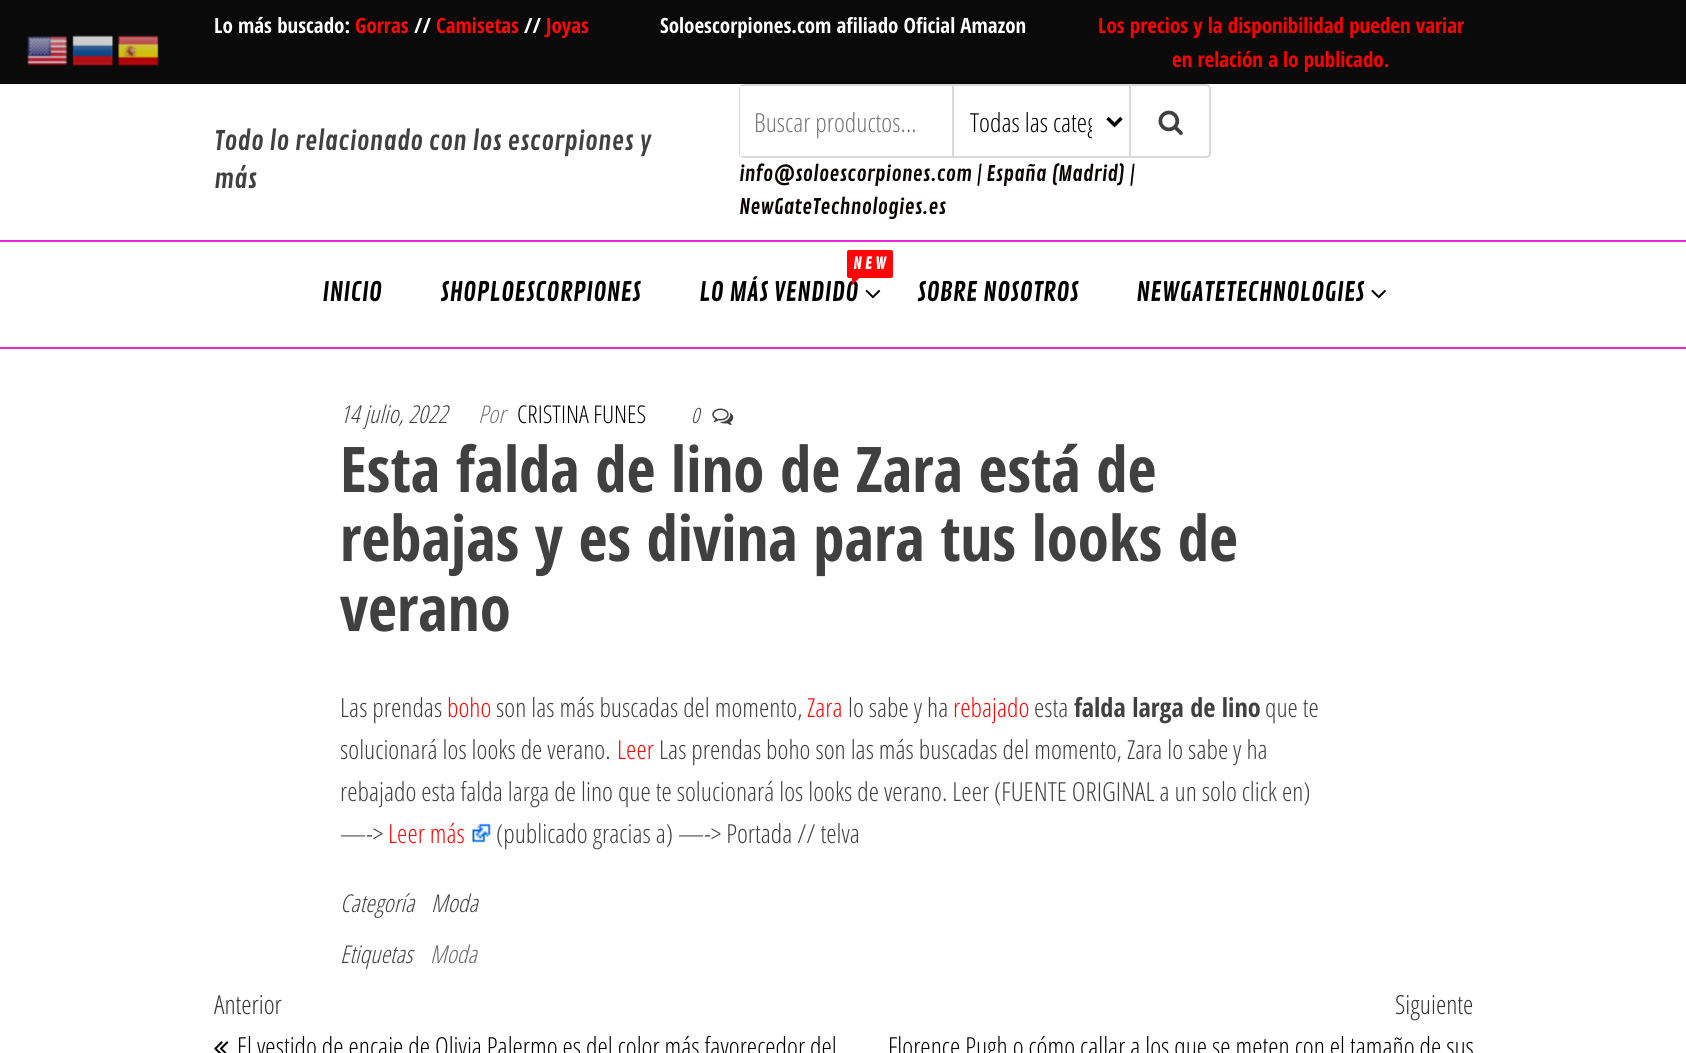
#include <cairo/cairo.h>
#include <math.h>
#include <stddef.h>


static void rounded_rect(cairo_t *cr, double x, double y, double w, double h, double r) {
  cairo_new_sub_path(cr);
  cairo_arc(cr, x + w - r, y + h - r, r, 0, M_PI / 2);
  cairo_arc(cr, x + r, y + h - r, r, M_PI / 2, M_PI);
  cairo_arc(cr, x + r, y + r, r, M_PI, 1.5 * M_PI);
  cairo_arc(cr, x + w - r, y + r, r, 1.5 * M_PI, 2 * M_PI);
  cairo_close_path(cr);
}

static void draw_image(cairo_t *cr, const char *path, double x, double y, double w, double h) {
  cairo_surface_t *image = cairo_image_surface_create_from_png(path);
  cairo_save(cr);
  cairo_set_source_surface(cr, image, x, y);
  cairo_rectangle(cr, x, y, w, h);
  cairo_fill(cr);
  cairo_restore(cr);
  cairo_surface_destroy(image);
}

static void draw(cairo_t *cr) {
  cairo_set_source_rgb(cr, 1, 1, 1);
  cairo_paint(cr);
  cairo_set_source_rgb(cr, 10 / 255.0, 10 / 255.0, 10 / 255.0);
  cairo_rectangle(cr, 0, 0, 1686, 84);
  cairo_fill(cr);
  draw_image(cr, "images/1.png", 27, 35, 41, 31);
  draw_image(cr, "images/2.png", 72, 35, 42, 31);
  draw_image(cr, "images/3.png", 118, 35, 41, 31);
  rounded_rect(cr, 740, 85, 470, 72, 4);
  cairo_set_source_rgb(cr, 217 / 255.0, 217 / 255.0, 217 / 255.0);
  cairo_stroke(cr);
  cairo_set_source_rgb(cr, 1, 1, 1);
  cairo_rectangle(cr, 740, 86, 4, 70);
  cairo_fill(cr);
  cairo_set_source_rgb(cr, 217 / 255.0, 217 / 255.0, 217 / 255.0);
  cairo_rectangle(cr, 952, 86, 2, 70);
  cairo_fill(cr);
  cairo_new_path(cr);
  cairo_move_to(cr, 1107.5, 118);
  cairo_line_to(cr, 1114.5, 125);
  cairo_line_to(cr, 1121.5, 118);
  cairo_set_source_rgb(cr, 0, 0, 0);
  cairo_set_line_width(cr, 3.5);
  cairo_stroke(cr);
  cairo_set_source_rgb(cr, 217 / 255.0, 217 / 255.0, 217 / 255.0);
  cairo_rectangle(cr, 1129, 86, 2, 70);
  cairo_fill(cr);
  draw_image(cr, "images/4.png", 1158, 110, 25, 25);
  cairo_set_source_rgb(cr, 235 / 255.0, 40 / 255.0, 209 / 255.0);
  cairo_rectangle(cr, 0, 240, 1686, 2);
  cairo_fill(cr);
  cairo_rectangle(cr, 0, 347, 1686, 2);
  cairo_fill(cr);
  draw_image(cr, "images/5.png", 865, 289, 16, 10);
  draw_image(cr, "images/6.png", 1371, 289, 15, 10);
  draw_image(cr, "images/7.png", 712, 408, 22, 17);
  draw_image(cr, "images/8.png", 472, 823, 19, 20);
  draw_image(cr, "images/9.png", 214, 1041, 15, 12);
  cairo_select_font_face(cr, "Open Sans Condensed", CAIRO_FONT_SLANT_NORMAL, CAIRO_FONT_WEIGHT_BOLD);
  cairo_set_font_size(cr, 21);
  cairo_set_source_rgb(cr, 1, 1, 1);
  cairo_move_to(cr, 214, 33);
  cairo_show_text(cr, "Lo más buscado:");
  cairo_set_source_rgb(cr, 1, 7 / 255.0, 7 / 255.0);
  cairo_move_to(cr, 355, 33);
  cairo_show_text(cr, "Gorras");
  cairo_set_source_rgb(cr, 1, 1, 1);
  cairo_move_to(cr, 414, 33);
  cairo_show_text(cr, "//");
  cairo_set_source_rgb(cr, 1, 7 / 255.0, 7 / 255.0);
  cairo_move_to(cr, 436, 33);
  cairo_show_text(cr, "Camisetas");
  cairo_set_source_rgb(cr, 1, 1, 1);
  cairo_move_to(cr, 524, 33);
  cairo_show_text(cr, "//");
  cairo_set_source_rgb(cr, 1, 7 / 255.0, 7 / 255.0);
  cairo_move_to(cr, 546, 33);
  cairo_show_text(cr, "Joyas");
  cairo_set_source_rgb(cr, 1, 1, 1);
  cairo_move_to(cr, 660, 33);
  cairo_show_text(cr, "Soloescorpiones.com afiliado Oficial Amazon");
  cairo_set_source_rgb(cr, 1, 0, 0);
  cairo_move_to(cr, 1098, 33);
  cairo_show_text(cr, "Los precios y la disponibilidad pueden variar");
  cairo_move_to(cr, 1172, 67);
  cairo_show_text(cr, "en relación a lo publicado.");
  cairo_select_font_face(cr, "Contrail One", CAIRO_FONT_SLANT_NORMAL, CAIRO_FONT_WEIGHT_NORMAL);
  cairo_set_font_size(cr, 26.25);
  cairo_set_source_rgb(cr, 64 / 255.0, 64 / 255.0, 64 / 255.0);
  cairo_move_to(cr, 214, 150);
  cairo_show_text(cr, "Todo lo relacionado con los escorpiones y");
  cairo_move_to(cr, 214, 188);
  cairo_show_text(cr, "más");
  cairo_select_font_face(cr, "Open Sans Condensed Light", CAIRO_FONT_SLANT_NORMAL, CAIRO_FONT_WEIGHT_NORMAL);
  cairo_set_source_rgb(cr, 117 / 255.0, 117 / 255.0, 117 / 255.0);
  cairo_move_to(cr, 754, 132);
  cairo_show_text(cr, "Buscar productos...");
  cairo_save(cr);
  cairo_rectangle(cr, 970, 102, 122, 38);
  cairo_clip(cr);
  cairo_set_source_rgb(cr, 0, 0, 0);
  cairo_move_to(cr, 970, 132);
  cairo_show_text(cr, "Todas las categ");
  cairo_restore(cr);
  cairo_select_font_face(cr, "Contrail One", CAIRO_FONT_SLANT_NORMAL, CAIRO_FONT_WEIGHT_NORMAL);
  cairo_set_font_size(cr, 21);
  cairo_set_source_rgb(cr, 10 / 255.0, 2 / 255.0, 2 / 255.0);
  cairo_move_to(cr, 739, 181);
  cairo_show_text(cr, "info@soloescorpiones.com | España (Madrid) |");
  cairo_move_to(cr, 739, 214);
  cairo_show_text(cr, "NewGateTechnologies.es");
  cairo_set_font_size(cr, 26.25);
  cairo_set_source_rgb(cr, 0, 0, 0);
  cairo_move_to(cr, 322, 301);
  cairo_show_text(cr, "INICIO");
  cairo_move_to(cr, 440, 301);
  cairo_show_text(cr, "SHOPLOESCORPIONES");
  cairo_move_to(cr, 699, 301);
  cairo_show_text(cr, "LO MÁS VENDIDO");
  cairo_set_source_rgb(cr, 1, 7 / 255.0, 7 / 255.0);
  rounded_rect(cr, 847, 250, 46, 28, 2);
  cairo_fill(cr);
  cairo_new_path(cr);
  cairo_move_to(cr, 852, 276.5);
  cairo_line_to(cr, 861, 276.5);
  cairo_line_to(cr, 852, 285);
  cairo_close_path(cr);
  cairo_fill(cr);
  cairo_select_font_face(cr, "Contrail One", CAIRO_FONT_SLANT_NORMAL, CAIRO_FONT_WEIGHT_BOLD);
  cairo_set_font_size(cr, 16);
  cairo_set_source_rgb(cr, 1, 1, 1);
  cairo_move_to(cr, 853, 269);
  cairo_show_text(cr, "N E W");
  cairo_select_font_face(cr, "Contrail One", CAIRO_FONT_SLANT_NORMAL, CAIRO_FONT_WEIGHT_NORMAL);
  cairo_set_font_size(cr, 26.25);
  cairo_set_source_rgb(cr, 0, 0, 0);
  cairo_move_to(cr, 917, 301);
  cairo_show_text(cr, "SOBRE NOSOTROS");
  cairo_move_to(cr, 1136, 301);
  cairo_show_text(cr, "NEWGATETECHNOLOGIES");
  cairo_select_font_face(cr, "Open Sans Condensed Light", CAIRO_FONT_SLANT_ITALIC, CAIRO_FONT_WEIGHT_NORMAL);
  cairo_set_font_size(cr, 24.5);
  cairo_set_source_rgb(cr, 64 / 255.0, 64 / 255.0, 64 / 255.0);
  cairo_move_to(cr, 340, 423);
  cairo_show_text(cr, "14 julio, 2022");
  cairo_set_source_rgb(cr, 117 / 255.0, 117 / 255.0, 117 / 255.0);
  cairo_move_to(cr, 478, 423);
  cairo_show_text(cr, "Por");
  cairo_select_font_face(cr, "Open Sans Condensed Light", CAIRO_FONT_SLANT_NORMAL, CAIRO_FONT_WEIGHT_NORMAL);
  cairo_set_source_rgb(cr, 0, 0, 0);
  cairo_move_to(cr, 517, 423);
  cairo_show_text(cr, "CRISTINA FUNES");
  cairo_select_font_face(cr, "Open Sans Condensed Light", CAIRO_FONT_SLANT_ITALIC, CAIRO_FONT_WEIGHT_NORMAL);
  cairo_set_font_size(cr, 21);
  cairo_set_source_rgb(cr, 64 / 255.0, 64 / 255.0, 64 / 255.0);
  cairo_move_to(cr, 691, 423);
  cairo_show_text(cr, "0");
  cairo_select_font_face(cr, "Open Sans Condensed", CAIRO_FONT_SLANT_NORMAL, CAIRO_FONT_WEIGHT_BOLD);
  cairo_set_font_size(cr, 63);
  cairo_move_to(cr, 340, 492);
  cairo_show_text(cr, "Esta falda de lino de Zara está de");
  cairo_move_to(cr, 340, 561);
  cairo_show_text(cr, "rebajas y es divina para tus looks de");
  cairo_move_to(cr, 340, 631);
  cairo_show_text(cr, "verano");
  cairo_select_font_face(cr, "Open Sans Condensed Light", CAIRO_FONT_SLANT_NORMAL, CAIRO_FONT_WEIGHT_NORMAL);
  cairo_set_font_size(cr, 26.25);
  cairo_move_to(cr, 340, 717);
  cairo_show_text(cr, "Las prendas");
  cairo_set_source_rgb(cr, 1, 7 / 255.0, 7 / 255.0);
  cairo_move_to(cr, 447, 717);
  cairo_show_text(cr, "boho");
  cairo_set_source_rgb(cr, 64 / 255.0, 64 / 255.0, 64 / 255.0);
  cairo_move_to(cr, 496, 717);
  cairo_show_text(cr, "son las más buscadas del momento,");
  cairo_set_source_rgb(cr, 1, 7 / 255.0, 7 / 255.0);
  cairo_move_to(cr, 807, 717);
  cairo_show_text(cr, "Zara");
  cairo_set_source_rgb(cr, 64 / 255.0, 64 / 255.0, 64 / 255.0);
  cairo_move_to(cr, 848, 717);
  cairo_show_text(cr, "lo sabe y ha");
  cairo_set_source_rgb(cr, 1, 7 / 255.0, 7 / 255.0);
  cairo_move_to(cr, 953, 717);
  cairo_show_text(cr, "rebajado");
  cairo_set_source_rgb(cr, 64 / 255.0, 64 / 255.0, 64 / 255.0);
  cairo_move_to(cr, 1034, 717);
  cairo_show_text(cr, "esta");
  cairo_select_font_face(cr, "Open Sans Condensed", CAIRO_FONT_SLANT_NORMAL, CAIRO_FONT_WEIGHT_BOLD);
  cairo_move_to(cr, 1074, 717);
  cairo_show_text(cr, "falda larga de lino");
  cairo_select_font_face(cr, "Open Sans Condensed Light", CAIRO_FONT_SLANT_NORMAL, CAIRO_FONT_WEIGHT_NORMAL);
  cairo_move_to(cr, 1265, 717);
  cairo_show_text(cr, "que te");
  cairo_move_to(cr, 340, 759);
  cairo_show_text(cr, "solucionará los looks de verano.");
  cairo_set_source_rgb(cr, 1, 7 / 255.0, 7 / 255.0);
  cairo_move_to(cr, 617, 759);
  cairo_show_text(cr, "Leer");
  cairo_set_source_rgb(cr, 64 / 255.0, 64 / 255.0, 64 / 255.0);
  cairo_move_to(cr, 659, 759);
  cairo_show_text(cr, "Las prendas boho son las más buscadas del momento, Zara lo sabe y ha");
  cairo_move_to(cr, 340, 801);
  cairo_show_text(cr, "rebajado esta falda larga de lino que te solucionará los looks de verano. Leer (FUENTE ORIGINAL a un solo click en)");
  cairo_move_to(cr, 340, 843);
  cairo_show_text(cr, "—->");
  cairo_set_source_rgb(cr, 1, 7 / 255.0, 7 / 255.0);
  cairo_move_to(cr, 388, 843);
  cairo_show_text(cr, "Leer más");
  cairo_set_source_rgb(cr, 64 / 255.0, 64 / 255.0, 64 / 255.0);
  cairo_move_to(cr, 496, 843);
  cairo_show_text(cr, "(publicado gracias a) —-> Portada // telva");
  cairo_select_font_face(cr, "Open Sans Condensed Light", CAIRO_FONT_SLANT_ITALIC, CAIRO_FONT_WEIGHT_NORMAL);
  cairo_set_font_size(cr, 24.5);
  cairo_move_to(cr, 340, 912);
  cairo_show_text(cr, "Categoría");
  cairo_move_to(cr, 431, 912);
  cairo_show_text(cr, "Moda");
  cairo_move_to(cr, 340, 963);
  cairo_show_text(cr, "Etiquetas");
  cairo_set_source_rgb(cr, 102 / 255.0, 102 / 255.0, 102 / 255.0);
  cairo_move_to(cr, 430, 963);
  cairo_show_text(cr, "Moda");
  cairo_select_font_face(cr, "Open Sans Condensed Light", CAIRO_FONT_SLANT_NORMAL, CAIRO_FONT_WEIGHT_NORMAL);
  cairo_set_font_size(cr, 26.25);
  cairo_set_source_rgb(cr, 51 / 255.0, 51 / 255.0, 51 / 255.0);
  cairo_move_to(cr, 214, 1014);
  cairo_show_text(cr, "Anterior");
  cairo_set_source_rgb(cr, 0, 0, 0);
  cairo_move_to(cr, 237, 1056);
  cairo_show_text(cr, "El vestido de encaje de Olivia Palermo es del color más favorecedor del");
  cairo_set_source_rgb(cr, 51 / 255.0, 51 / 255.0, 51 / 255.0);
  cairo_move_to(cr, 1395, 1014);
  cairo_show_text(cr, "Siguiente");
  cairo_set_source_rgb(cr, 0, 0, 0);
  cairo_move_to(cr, 888, 1056);
  cairo_show_text(cr, "Florence Pugh o cómo callar a los que se meten con el tamaño de sus");
}

int main(void) {
  cairo_surface_t *surface = cairo_image_surface_create(CAIRO_FORMAT_RGB24, 1686, 1053);
  cairo_t *cr = cairo_create(surface);
  cairo_font_options_t *options = cairo_font_options_create();
  cairo_font_options_set_hint_metrics(options, CAIRO_HINT_METRICS_OFF);
  cairo_font_options_set_hint_style(options, CAIRO_HINT_STYLE_NONE);
  cairo_set_font_options(cr, options);
  cairo_set_miter_limit(cr, 4);
  draw(cr);
  cairo_surface_write_to_png(surface, "out.png");
  cairo_font_options_destroy(options);
  cairo_destroy(cr);
  cairo_surface_destroy(surface);
  return 0;
}
